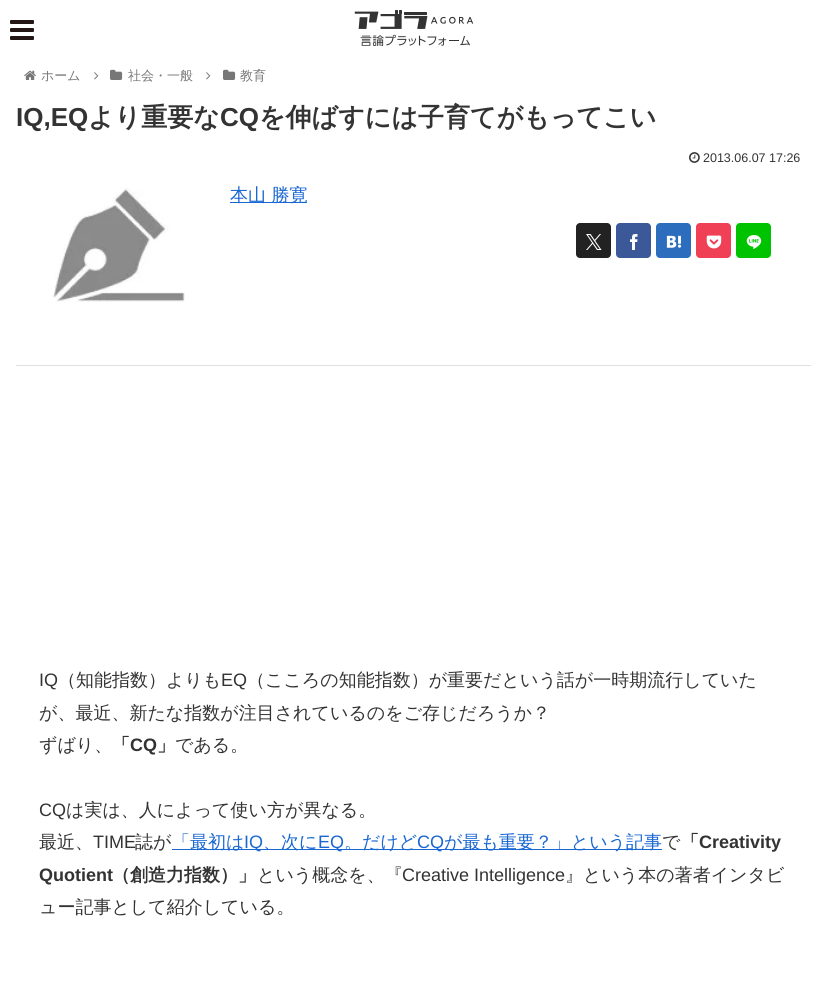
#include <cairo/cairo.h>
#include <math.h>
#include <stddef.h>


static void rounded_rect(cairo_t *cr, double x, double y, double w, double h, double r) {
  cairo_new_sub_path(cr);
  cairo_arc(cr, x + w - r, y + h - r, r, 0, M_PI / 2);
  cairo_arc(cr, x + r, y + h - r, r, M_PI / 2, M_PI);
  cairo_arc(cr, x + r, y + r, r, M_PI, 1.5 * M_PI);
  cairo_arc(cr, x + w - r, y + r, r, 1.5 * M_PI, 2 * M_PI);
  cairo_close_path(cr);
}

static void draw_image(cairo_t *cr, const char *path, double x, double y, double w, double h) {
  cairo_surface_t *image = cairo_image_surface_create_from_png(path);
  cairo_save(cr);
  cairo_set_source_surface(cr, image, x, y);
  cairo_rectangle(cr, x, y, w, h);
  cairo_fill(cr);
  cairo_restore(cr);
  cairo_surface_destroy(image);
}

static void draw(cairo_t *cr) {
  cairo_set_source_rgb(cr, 1, 1, 1);
  cairo_paint(cr);
  draw_image(cr, "images/1.png", 10, 20, 24, 20);
  draw_image(cr, "images/2.png", 354, 10, 120, 36);
  draw_image(cr, "images/3.png", 24, 70, 12, 10);
  draw_image(cr, "images/4.png", 94, 72, 5, 8);
  draw_image(cr, "images/5.png", 110, 69, 13, 11);
  draw_image(cr, "images/4.png", 206, 72, 5, 8);
  draw_image(cr, "images/5.png", 223, 69, 13, 11);
  cairo_set_source_rgb(cr, 224 / 255.0, 224 / 255.0, 224 / 255.0);
  cairo_rectangle(cr, 16, 365, 795, 1);
  cairo_fill(cr);
  draw_image(cr, "images/6.png", 689, 152, 11, 11);
  cairo_set_source_rgb(cr, 25 / 255.0, 103 / 255.0, 210 / 255.0);
  cairo_rectangle(cr, 230, 202, 77, 1);
  cairo_fill(cr);
  cairo_set_source_rgb(cr, 34 / 255.0, 34 / 255.0, 34 / 255.0);
  rounded_rect(cr, 576, 223, 35, 35, 4);
  cairo_fill(cr);
  draw_image(cr, "images/7.png", 586, 234, 16, 16);
  cairo_set_source_rgb(cr, 59 / 255.0, 89 / 255.0, 152 / 255.0);
  rounded_rect(cr, 616, 223, 35, 35, 4);
  cairo_fill(cr);
  draw_image(cr, "images/8.png", 630, 234, 8, 16);
  cairo_set_source_rgb(cr, 44 / 255.0, 110 / 255.0, 189 / 255.0);
  rounded_rect(cr, 656, 223, 35, 35, 4);
  cairo_fill(cr);
  draw_image(cr, "images/9.png", 666, 235, 16, 13);
  cairo_set_source_rgb(cr, 239 / 255.0, 64 / 255.0, 86 / 255.0);
  rounded_rect(cr, 696, 223, 35, 35, 4);
  cairo_fill(cr);
  draw_image(cr, "images/10.png", 706, 235, 16, 14);
  cairo_set_source_rgb(cr, 0, 195 / 255.0, 0);
  rounded_rect(cr, 736, 223, 35, 35, 4);
  cairo_fill(cr);
  draw_image(cr, "images/11.png", 746, 235, 16, 14);
  draw_image(cr, "images/12.png", 52, 187, 133, 115);
  cairo_set_source_rgb(cr, 25 / 255.0, 103 / 255.0, 210 / 255.0);
  cairo_rectangle(cr, 172, 849, 490, 1);
  cairo_fill(cr);
  cairo_select_font_face(cr, "WenQuanYi Zen Hei Medium", CAIRO_FONT_SLANT_NORMAL, CAIRO_FONT_WEIGHT_NORMAL);
  cairo_set_font_size(cr, 13);
  cairo_set_source_rgb(cr, 119 / 255.0, 119 / 255.0, 119 / 255.0);
  cairo_move_to(cr, 41, 80);
  cairo_show_text(cr, "ホーム");
  cairo_move_to(cr, 128, 80);
  cairo_show_text(cr, "社会・一般");
  cairo_move_to(cr, 240, 80);
  cairo_show_text(cr, "教育");
  cairo_select_font_face(cr, "Liberation Sans", CAIRO_FONT_SLANT_NORMAL, CAIRO_FONT_WEIGHT_BOLD);
  cairo_set_font_size(cr, 26);
  cairo_set_source_rgb(cr, 51 / 255.0, 51 / 255.0, 51 / 255.0);
  cairo_move_to(cr, 16, 126);
  cairo_show_text(cr, "IQ,EQ");
  cairo_select_font_face(cr, "WenQuanYi Zen Hei", CAIRO_FONT_SLANT_NORMAL, CAIRO_FONT_WEIGHT_BOLD);
  cairo_move_to(cr, 88, 126);
  cairo_show_text(cr, "より重要な");
  cairo_select_font_face(cr, "Liberation Sans", CAIRO_FONT_SLANT_NORMAL, CAIRO_FONT_WEIGHT_BOLD);
  cairo_move_to(cr, 220, 126);
  cairo_show_text(cr, "CQ");
  cairo_select_font_face(cr, "WenQuanYi Zen Hei", CAIRO_FONT_SLANT_NORMAL, CAIRO_FONT_WEIGHT_BOLD);
  cairo_move_to(cr, 259, 126);
  cairo_show_text(cr, "を伸ばすには子育てがもってこい");
  cairo_select_font_face(cr, "Liberation Sans", CAIRO_FONT_SLANT_NORMAL, CAIRO_FONT_WEIGHT_NORMAL);
  cairo_set_font_size(cr, 12.5);
  cairo_move_to(cr, 703, 162);
  cairo_show_text(cr, "2013.06.07 17:26");
  cairo_select_font_face(cr, "WenQuanYi Zen Hei Medium", CAIRO_FONT_SLANT_NORMAL, CAIRO_FONT_WEIGHT_NORMAL);
  cairo_set_font_size(cr, 18);
  cairo_set_source_rgb(cr, 25 / 255.0, 103 / 255.0, 210 / 255.0);
  cairo_move_to(cr, 230, 201);
  cairo_show_text(cr, "本山 勝寛");
  cairo_select_font_face(cr, "Liberation Sans", CAIRO_FONT_SLANT_NORMAL, CAIRO_FONT_WEIGHT_NORMAL);
  cairo_set_source_rgb(cr, 51 / 255.0, 51 / 255.0, 51 / 255.0);
  cairo_move_to(cr, 39, 686);
  cairo_show_text(cr, "IQ");
  cairo_select_font_face(cr, "WenQuanYi Zen Hei Medium", CAIRO_FONT_SLANT_NORMAL, CAIRO_FONT_WEIGHT_NORMAL);
  cairo_move_to(cr, 58, 686);
  cairo_show_text(cr, "（知能指数）よりも");
  cairo_select_font_face(cr, "Liberation Sans", CAIRO_FONT_SLANT_NORMAL, CAIRO_FONT_WEIGHT_NORMAL);
  cairo_move_to(cr, 221, 686);
  cairo_show_text(cr, "EQ");
  cairo_select_font_face(cr, "WenQuanYi Zen Hei Medium", CAIRO_FONT_SLANT_NORMAL, CAIRO_FONT_WEIGHT_NORMAL);
  cairo_move_to(cr, 247, 686);
  cairo_show_text(cr, "（こころの知能指数）が重要だという話が一時期流行していた");
  cairo_move_to(cr, 39, 719);
  cairo_show_text(cr, "が、最近、新たな指数が注目されているのをご存じだろうか？");
  cairo_move_to(cr, 39, 751);
  cairo_show_text(cr, "ずばり、");
  cairo_select_font_face(cr, "WenQuanYi Zen Hei", CAIRO_FONT_SLANT_NORMAL, CAIRO_FONT_WEIGHT_BOLD);
  cairo_move_to(cr, 112, 751);
  cairo_show_text(cr, "「");
  cairo_select_font_face(cr, "Liberation Sans", CAIRO_FONT_SLANT_NORMAL, CAIRO_FONT_WEIGHT_BOLD);
  cairo_move_to(cr, 130, 751);
  cairo_show_text(cr, "CQ");
  cairo_select_font_face(cr, "WenQuanYi Zen Hei", CAIRO_FONT_SLANT_NORMAL, CAIRO_FONT_WEIGHT_BOLD);
  cairo_move_to(cr, 157, 751);
  cairo_show_text(cr, "」");
  cairo_select_font_face(cr, "WenQuanYi Zen Hei Medium", CAIRO_FONT_SLANT_NORMAL, CAIRO_FONT_WEIGHT_NORMAL);
  cairo_move_to(cr, 175, 751);
  cairo_show_text(cr, "である。");
  cairo_select_font_face(cr, "Liberation Sans", CAIRO_FONT_SLANT_NORMAL, CAIRO_FONT_WEIGHT_NORMAL);
  cairo_move_to(cr, 39, 816);
  cairo_show_text(cr, "CQ");
  cairo_select_font_face(cr, "WenQuanYi Zen Hei Medium", CAIRO_FONT_SLANT_NORMAL, CAIRO_FONT_WEIGHT_NORMAL);
  cairo_move_to(cr, 66, 816);
  cairo_show_text(cr, "は実は、人によって使い方が異なる。");
  cairo_move_to(cr, 39, 848);
  cairo_show_text(cr, "最近、");
  cairo_select_font_face(cr, "Liberation Sans", CAIRO_FONT_SLANT_NORMAL, CAIRO_FONT_WEIGHT_NORMAL);
  cairo_move_to(cr, 93, 848);
  cairo_show_text(cr, "TIME");
  cairo_select_font_face(cr, "WenQuanYi Zen Hei Medium", CAIRO_FONT_SLANT_NORMAL, CAIRO_FONT_WEIGHT_NORMAL);
  cairo_move_to(cr, 135, 848);
  cairo_show_text(cr, "誌が");
  cairo_set_source_rgb(cr, 25 / 255.0, 103 / 255.0, 210 / 255.0);
  cairo_move_to(cr, 172, 848);
  cairo_show_text(cr, "「最初は");
  cairo_select_font_face(cr, "Liberation Sans", CAIRO_FONT_SLANT_NORMAL, CAIRO_FONT_WEIGHT_NORMAL);
  cairo_move_to(cr, 244, 848);
  cairo_show_text(cr, "IQ");
  cairo_select_font_face(cr, "WenQuanYi Zen Hei Medium", CAIRO_FONT_SLANT_NORMAL, CAIRO_FONT_WEIGHT_NORMAL);
  cairo_move_to(cr, 263, 848);
  cairo_show_text(cr, "、次に");
  cairo_select_font_face(cr, "Liberation Sans", CAIRO_FONT_SLANT_NORMAL, CAIRO_FONT_WEIGHT_NORMAL);
  cairo_move_to(cr, 318, 848);
  cairo_show_text(cr, "EQ");
  cairo_select_font_face(cr, "WenQuanYi Zen Hei Medium", CAIRO_FONT_SLANT_NORMAL, CAIRO_FONT_WEIGHT_NORMAL);
  cairo_move_to(cr, 344, 848);
  cairo_show_text(cr, "。だけど");
  cairo_select_font_face(cr, "Liberation Sans", CAIRO_FONT_SLANT_NORMAL, CAIRO_FONT_WEIGHT_NORMAL);
  cairo_move_to(cr, 417, 848);
  cairo_show_text(cr, "CQ");
  cairo_select_font_face(cr, "WenQuanYi Zen Hei Medium", CAIRO_FONT_SLANT_NORMAL, CAIRO_FONT_WEIGHT_NORMAL);
  cairo_move_to(cr, 444, 848);
  cairo_show_text(cr, "が最も重要？」という記事");
  cairo_set_source_rgb(cr, 51 / 255.0, 51 / 255.0, 51 / 255.0);
  cairo_move_to(cr, 662, 848);
  cairo_show_text(cr, "で");
  cairo_select_font_face(cr, "WenQuanYi Zen Hei", CAIRO_FONT_SLANT_NORMAL, CAIRO_FONT_WEIGHT_BOLD);
  cairo_move_to(cr, 681, 848);
  cairo_show_text(cr, "「");
  cairo_select_font_face(cr, "Liberation Sans", CAIRO_FONT_SLANT_NORMAL, CAIRO_FONT_WEIGHT_BOLD);
  cairo_move_to(cr, 699, 848);
  cairo_show_text(cr, "Creativity");
  cairo_move_to(cr, 39, 881);
  cairo_show_text(cr, "Quotient");
  cairo_select_font_face(cr, "WenQuanYi Zen Hei", CAIRO_FONT_SLANT_NORMAL, CAIRO_FONT_WEIGHT_BOLD);
  cairo_move_to(cr, 112, 881);
  cairo_show_text(cr, "（創造力指数）」");
  cairo_select_font_face(cr, "WenQuanYi Zen Hei Medium", CAIRO_FONT_SLANT_NORMAL, CAIRO_FONT_WEIGHT_NORMAL);
  cairo_move_to(cr, 257, 881);
  cairo_show_text(cr, "という概念を、『");
  cairo_select_font_face(cr, "Liberation Sans", CAIRO_FONT_SLANT_NORMAL, CAIRO_FONT_WEIGHT_NORMAL);
  cairo_move_to(cr, 402, 881);
  cairo_show_text(cr, "Creative Intelligence");
  cairo_select_font_face(cr, "WenQuanYi Zen Hei Medium", CAIRO_FONT_SLANT_NORMAL, CAIRO_FONT_WEIGHT_NORMAL);
  cairo_move_to(cr, 565, 881);
  cairo_show_text(cr, "』という本の著者インタビ");
  cairo_move_to(cr, 39, 913);
  cairo_show_text(cr, "ュー記事として紹介している。");
}

int main(void) {
  cairo_surface_t *surface = cairo_image_surface_create(CAIRO_FORMAT_RGB24, 827, 1003);
  cairo_t *cr = cairo_create(surface);
  cairo_font_options_t *options = cairo_font_options_create();
  cairo_font_options_set_hint_metrics(options, CAIRO_HINT_METRICS_OFF);
  cairo_font_options_set_hint_style(options, CAIRO_HINT_STYLE_NONE);
  cairo_set_font_options(cr, options);
  cairo_set_miter_limit(cr, 4);
  draw(cr);
  cairo_surface_write_to_png(surface, "out.png");
  cairo_font_options_destroy(options);
  cairo_destroy(cr);
  cairo_surface_destroy(surface);
  return 0;
}
